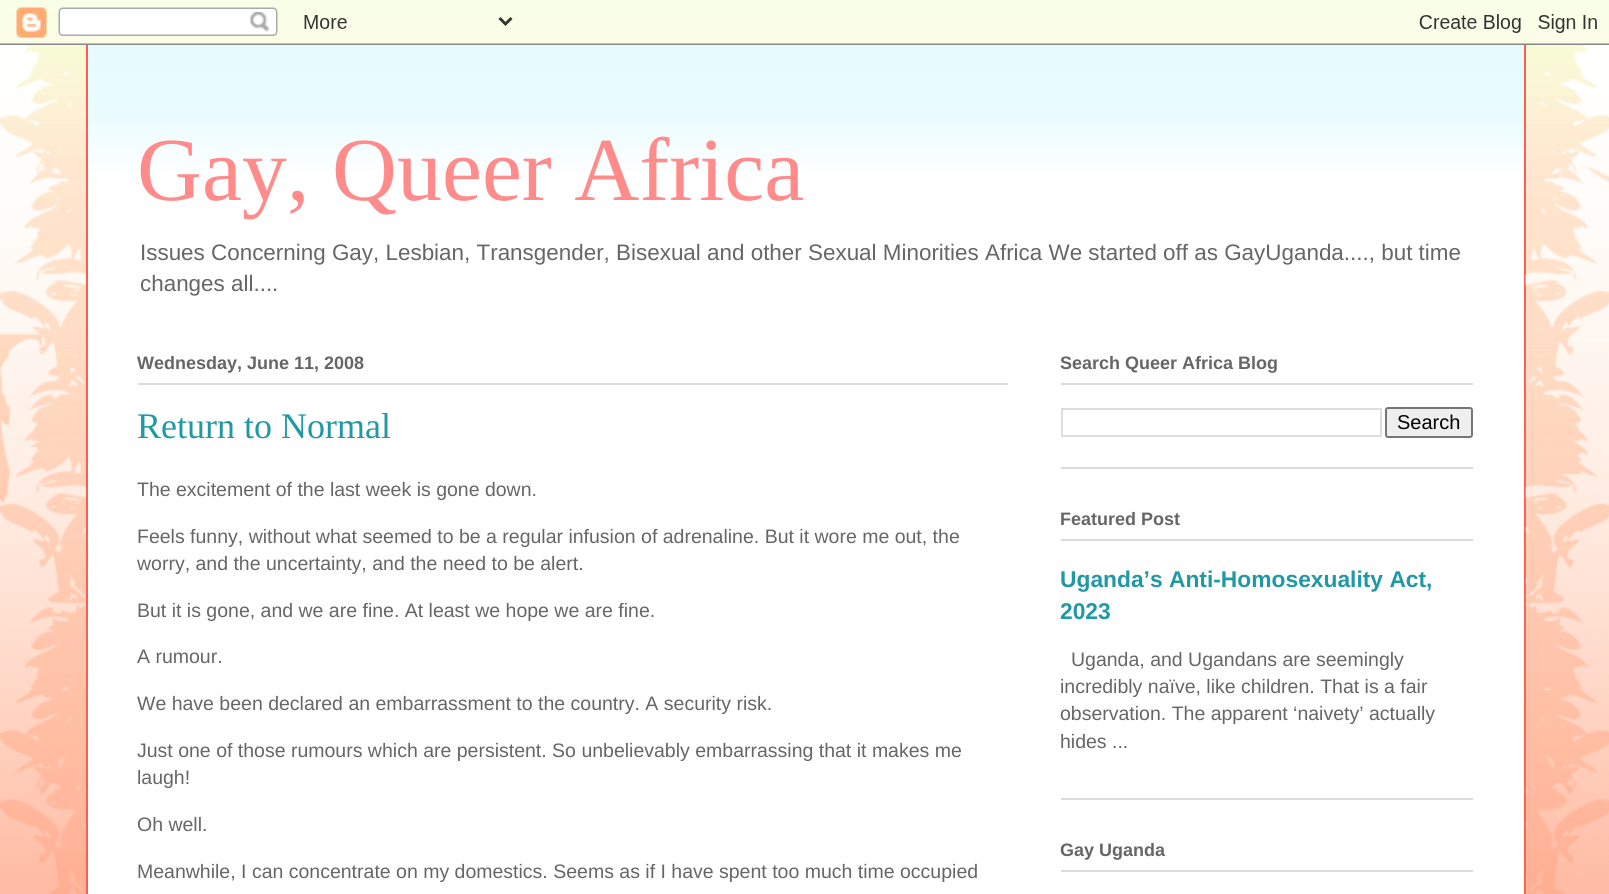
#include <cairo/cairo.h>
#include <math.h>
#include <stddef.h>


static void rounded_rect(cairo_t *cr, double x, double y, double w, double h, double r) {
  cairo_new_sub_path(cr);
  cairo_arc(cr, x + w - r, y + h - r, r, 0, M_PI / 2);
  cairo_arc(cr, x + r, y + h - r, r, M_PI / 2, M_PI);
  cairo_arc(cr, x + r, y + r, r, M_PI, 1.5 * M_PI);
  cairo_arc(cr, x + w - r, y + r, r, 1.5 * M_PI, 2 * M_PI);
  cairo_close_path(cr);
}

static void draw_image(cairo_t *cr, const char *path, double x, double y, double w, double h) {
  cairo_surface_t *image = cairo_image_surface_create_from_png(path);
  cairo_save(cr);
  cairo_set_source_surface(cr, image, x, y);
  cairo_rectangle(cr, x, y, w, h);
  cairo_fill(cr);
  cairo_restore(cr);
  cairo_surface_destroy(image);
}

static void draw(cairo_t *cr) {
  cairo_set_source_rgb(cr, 1, 1, 1);
  cairo_paint(cr);
  draw_image(cr, "images/1.png", 0, 0, 1609, 894);
  draw_image(cr, "images/2.png", 0, 0, 1609, 45);
  draw_image(cr, "images/3.png", 0, 45, 86, 849);
  cairo_set_source_rgb(cr, 1, 1, 1);
  cairo_rectangle(cr, 88, 45, 1436, 849);
  cairo_fill(cr);
  draw_image(cr, "images/4.png", 85, 45, 1439, 126);
  cairo_set_source_rgb(cr, 251 / 255.0, 94 / 255.0, 83 / 255.0);
  cairo_rectangle(cr, 1524, 45, 2, 849);
  cairo_fill(cr);
  cairo_rectangle(cr, 86, 45, 2, 849);
  cairo_fill(cr);
  draw_image(cr, "images/5.png", 1525, 45, 84, 849);
  cairo_set_source_rgb(cr, 219 / 255.0, 219 / 255.0, 219 / 255.0);
  cairo_rectangle(cr, 138, 383, 870, 2);
  cairo_fill(cr);
  cairo_rectangle(cr, 1061, 467, 412, 2);
  cairo_fill(cr);
  cairo_rectangle(cr, 1061, 383, 412, 2);
  cairo_fill(cr);
  cairo_rectangle(cr, 1062, 409, 319, 27);
  cairo_set_source_rgb(cr, 221 / 255.0, 221 / 255.0, 221 / 255.0);
  cairo_stroke(cr);
  cairo_set_source_rgb(cr, 239 / 255.0, 239 / 255.0, 239 / 255.0);
  rounded_rect(cr, 1386, 408, 86, 29, 2);
  cairo_fill_preserve(cr);
  cairo_set_source_rgb(cr, 118 / 255.0, 118 / 255.0, 118 / 255.0);
  cairo_stroke(cr);
  cairo_set_source_rgb(cr, 219 / 255.0, 219 / 255.0, 219 / 255.0);
  cairo_rectangle(cr, 1061, 798, 412, 2);
  cairo_fill(cr);
  cairo_rectangle(cr, 1061, 539, 412, 2);
  cairo_fill(cr);
  cairo_rectangle(cr, 1061, 870, 412, 2);
  cairo_fill(cr);
  cairo_select_font_face(cr, "Liberation Serif", CAIRO_FONT_SLANT_NORMAL, CAIRO_FONT_WEIGHT_NORMAL);
  cairo_set_font_size(cr, 90);
  cairo_set_source_rgb(cr, 1, 139 / 255.0, 139 / 255.0);
  cairo_move_to(cr, 137, 200);
  cairo_show_text(cr, "Gay, Queer Africa");
  cairo_select_font_face(cr, "Liberation Sans", CAIRO_FONT_SLANT_NORMAL, CAIRO_FONT_WEIGHT_NORMAL);
  cairo_set_font_size(cr, 22.42);
  cairo_set_source_rgb(cr, 102 / 255.0, 102 / 255.0, 102 / 255.0);
  cairo_move_to(cr, 140, 260);
  cairo_show_text(cr, "Issues Concerning Gay, Lesbian, Transgender, Bisexual and other Sexual Minorities Africa We started off as GayUganda...., but time");
  cairo_move_to(cr, 140, 291);
  cairo_show_text(cr, "changes all....");
  cairo_select_font_face(cr, "Liberation Sans", CAIRO_FONT_SLANT_NORMAL, CAIRO_FONT_WEIGHT_BOLD);
  cairo_set_font_size(cr, 18);
  cairo_move_to(cr, 137, 369);
  cairo_show_text(cr, "Wednesday, June 11, 2008");
  cairo_select_font_face(cr, "Liberation Serif", CAIRO_FONT_SLANT_NORMAL, CAIRO_FONT_WEIGHT_NORMAL);
  cairo_set_font_size(cr, 36);
  cairo_set_source_rgb(cr, 33 / 255.0, 152 / 255.0, 166 / 255.0);
  cairo_move_to(cr, 137, 438);
  cairo_show_text(cr, "Return to Normal");
  cairo_select_font_face(cr, "Liberation Sans", CAIRO_FONT_SLANT_NORMAL, CAIRO_FONT_WEIGHT_NORMAL);
  cairo_set_font_size(cr, 19.5);
  cairo_set_source_rgb(cr, 102 / 255.0, 102 / 255.0, 102 / 255.0);
  cairo_move_to(cr, 137, 496);
  cairo_show_text(cr, "The excitement of the last week is gone down.");
  cairo_move_to(cr, 137, 543);
  cairo_show_text(cr, "Feels funny, without what seemed to be a regular infusion of adrenaline. But it wore me out, the");
  cairo_move_to(cr, 137, 570);
  cairo_show_text(cr, "worry, and the uncertainty, and the need to be alert.");
  cairo_move_to(cr, 137, 617);
  cairo_show_text(cr, "But it is gone, and we are fine. At least we hope we are fine.");
  cairo_move_to(cr, 137, 663);
  cairo_show_text(cr, "A rumour.");
  cairo_move_to(cr, 137, 710);
  cairo_show_text(cr, "We have been declared an embarrassment to the country. A security risk.");
  cairo_move_to(cr, 137, 757);
  cairo_show_text(cr, "Just one of those rumours which are persistent. So unbelievably embarrassing that it makes me");
  cairo_move_to(cr, 137, 784);
  cairo_show_text(cr, "laugh!");
  cairo_move_to(cr, 137, 831);
  cairo_show_text(cr, "Oh well.");
  cairo_move_to(cr, 137, 878);
  cairo_show_text(cr, "Meanwhile, I can concentrate on my domestics. Seems as if I have spent too much time occupied");
  cairo_select_font_face(cr, "Liberation Sans", CAIRO_FONT_SLANT_NORMAL, CAIRO_FONT_WEIGHT_BOLD);
  cairo_set_font_size(cr, 18);
  cairo_move_to(cr, 1060, 369);
  cairo_show_text(cr, "Search Queer Africa Blog");
  cairo_select_font_face(cr, "Liberation Sans", CAIRO_FONT_SLANT_NORMAL, CAIRO_FONT_WEIGHT_NORMAL);
  cairo_set_font_size(cr, 20);
  cairo_set_source_rgb(cr, 0, 0, 0);
  cairo_move_to(cr, 1397, 429);
  cairo_show_text(cr, "Search");
  cairo_select_font_face(cr, "Liberation Sans", CAIRO_FONT_SLANT_NORMAL, CAIRO_FONT_WEIGHT_BOLD);
  cairo_set_font_size(cr, 18);
  cairo_set_source_rgb(cr, 102 / 255.0, 102 / 255.0, 102 / 255.0);
  cairo_move_to(cr, 1060, 525);
  cairo_show_text(cr, "Featured Post");
  cairo_set_font_size(cr, 22.8);
  cairo_set_source_rgb(cr, 33 / 255.0, 152 / 255.0, 166 / 255.0);
  cairo_move_to(cr, 1060, 587);
  cairo_show_text(cr, "Uganda’s Anti-Homosexuality Act,");
  cairo_move_to(cr, 1060, 619);
  cairo_show_text(cr, "2023");
  cairo_select_font_face(cr, "Liberation Sans", CAIRO_FONT_SLANT_NORMAL, CAIRO_FONT_WEIGHT_NORMAL);
  cairo_set_font_size(cr, 19.5);
  cairo_set_source_rgb(cr, 102 / 255.0, 102 / 255.0, 102 / 255.0);
  cairo_move_to(cr, 1071, 666);
  cairo_show_text(cr, "Uganda, and Ugandans are seemingly");
  cairo_move_to(cr, 1060, 693);
  cairo_show_text(cr, "incredibly naïve, like children. That is a fair");
  cairo_move_to(cr, 1060, 720);
  cairo_show_text(cr, "observation. The apparent ‘naivety’ actually");
  cairo_move_to(cr, 1060, 748);
  cairo_show_text(cr, "hides ...");
  cairo_select_font_face(cr, "Liberation Sans", CAIRO_FONT_SLANT_NORMAL, CAIRO_FONT_WEIGHT_BOLD);
  cairo_set_font_size(cr, 18);
  cairo_move_to(cr, 1060, 856);
  cairo_show_text(cr, "Gay Uganda");
}

int main(void) {
  cairo_surface_t *surface = cairo_image_surface_create(CAIRO_FORMAT_RGB24, 1609, 894);
  cairo_t *cr = cairo_create(surface);
  cairo_font_options_t *options = cairo_font_options_create();
  cairo_font_options_set_hint_metrics(options, CAIRO_HINT_METRICS_OFF);
  cairo_font_options_set_hint_style(options, CAIRO_HINT_STYLE_NONE);
  cairo_set_font_options(cr, options);
  cairo_set_miter_limit(cr, 4);
  draw(cr);
  cairo_surface_write_to_png(surface, "out.png");
  cairo_font_options_destroy(options);
  cairo_destroy(cr);
  cairo_surface_destroy(surface);
  return 0;
}
